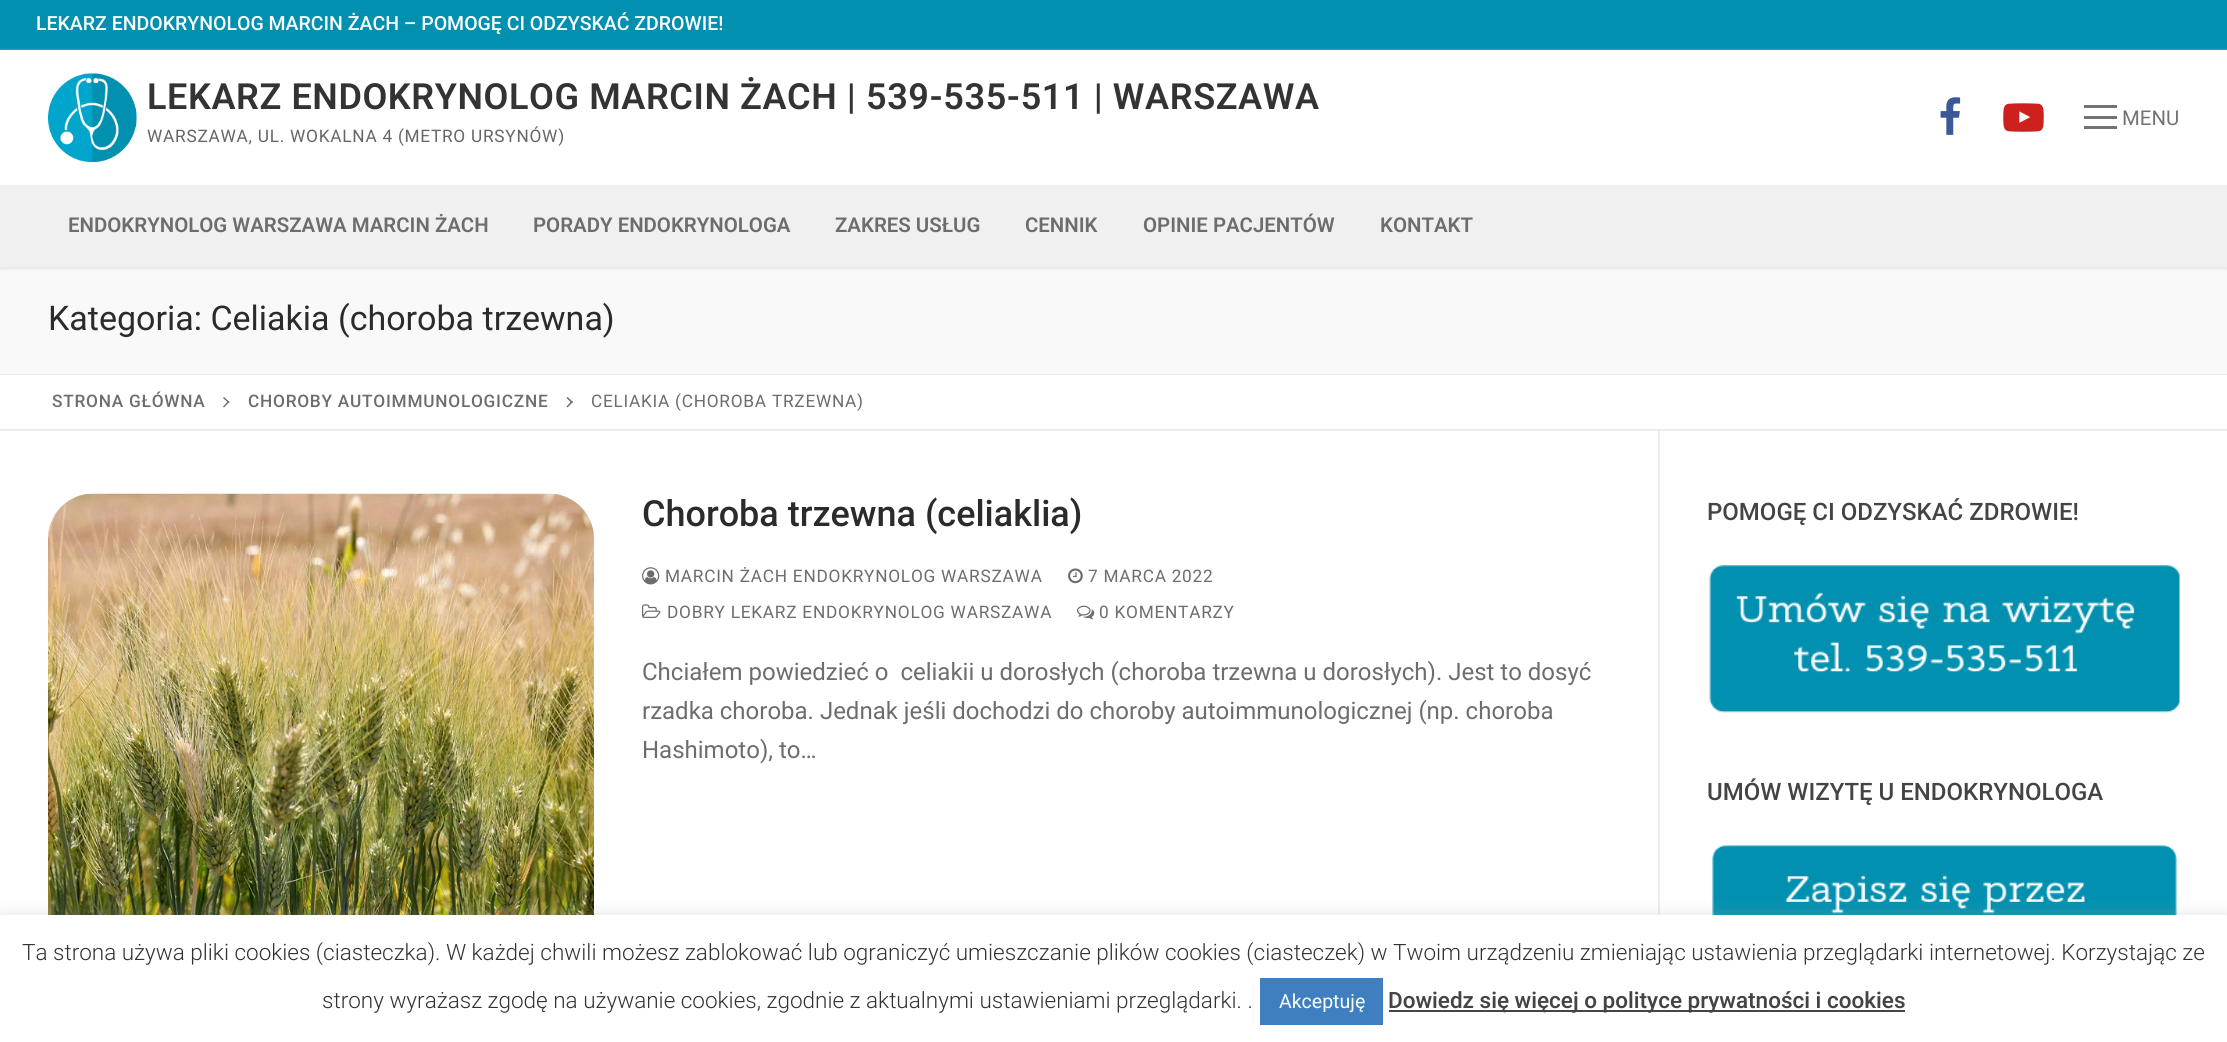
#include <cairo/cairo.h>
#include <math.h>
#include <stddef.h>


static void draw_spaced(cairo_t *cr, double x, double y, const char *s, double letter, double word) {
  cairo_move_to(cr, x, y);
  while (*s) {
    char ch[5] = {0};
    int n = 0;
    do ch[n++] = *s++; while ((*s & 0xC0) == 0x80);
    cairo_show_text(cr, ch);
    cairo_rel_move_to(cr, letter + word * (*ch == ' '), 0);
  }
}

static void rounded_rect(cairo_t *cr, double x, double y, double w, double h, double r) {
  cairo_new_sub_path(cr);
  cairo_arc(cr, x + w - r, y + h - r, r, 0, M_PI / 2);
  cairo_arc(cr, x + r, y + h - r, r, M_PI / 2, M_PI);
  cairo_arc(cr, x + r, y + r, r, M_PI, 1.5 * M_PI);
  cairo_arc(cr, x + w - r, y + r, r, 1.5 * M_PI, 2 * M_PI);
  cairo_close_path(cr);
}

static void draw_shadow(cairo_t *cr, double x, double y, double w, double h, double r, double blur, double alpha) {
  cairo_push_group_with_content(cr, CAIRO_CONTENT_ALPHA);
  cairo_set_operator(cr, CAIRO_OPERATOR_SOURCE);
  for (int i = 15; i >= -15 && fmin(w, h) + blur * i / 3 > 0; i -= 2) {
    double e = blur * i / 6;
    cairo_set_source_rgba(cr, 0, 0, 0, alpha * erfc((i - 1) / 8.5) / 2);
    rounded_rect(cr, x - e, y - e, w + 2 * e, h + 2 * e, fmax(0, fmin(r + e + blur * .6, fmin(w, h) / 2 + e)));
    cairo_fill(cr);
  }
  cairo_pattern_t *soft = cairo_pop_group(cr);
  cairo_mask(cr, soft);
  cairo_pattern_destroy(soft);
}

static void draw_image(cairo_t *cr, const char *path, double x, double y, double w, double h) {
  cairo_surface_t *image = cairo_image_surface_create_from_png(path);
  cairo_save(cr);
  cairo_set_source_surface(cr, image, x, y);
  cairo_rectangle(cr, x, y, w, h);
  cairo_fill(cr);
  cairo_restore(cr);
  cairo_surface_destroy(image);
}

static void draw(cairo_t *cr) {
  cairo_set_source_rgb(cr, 1, 1, 1);
  cairo_paint(cr);
  cairo_set_source_rgb(cr, 1 / 255.0, 144 / 255.0, 176 / 255.0);
  cairo_rectangle(cr, 0, 0, 2227, 50);
  cairo_fill(cr);
  cairo_set_source_rgb(cr, 225 / 255.0, 229 / 255.0, 234 / 255.0);
  draw_shadow(cr, 0, 51, 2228, 135, 0, 1.5, 1);
  cairo_set_source_rgb(cr, 1, 1, 1);
  cairo_rectangle(cr, 0, 50, 2227, 135);
  cairo_fill(cr);
  draw_image(cr, "images/1.png", 48, 73, 89, 89);
  draw_image(cr, "images/2.png", 1940, 97, 21, 38);
  draw_image(cr, "images/3.png", 2003, 103, 41, 29);
  cairo_set_source_rgb(cr, 115 / 255.0, 115 / 255.0, 115 / 255.0);
  cairo_rectangle(cr, 2084, 116, 33, 3);
  cairo_fill(cr);
  cairo_rectangle(cr, 2084, 105, 33, 3);
  cairo_fill(cr);
  cairo_rectangle(cr, 2084, 126, 33, 3);
  cairo_fill(cr);
  cairo_set_source_rgb(cr, 249 / 255.0, 249 / 255.0, 249 / 255.0);
  cairo_rectangle(cr, 0, 267, 2227, 107);
  cairo_fill(cr);
  cairo_set_source_rgb(cr, 225 / 255.0, 229 / 255.0, 234 / 255.0);
  draw_shadow(cr, 0, 186, 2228, 83, 0, 1.5, 1);
  cairo_set_source_rgb(cr, 240 / 255.0, 240 / 255.0, 240 / 255.0);
  cairo_rectangle(cr, 0, 185, 2227, 82);
  cairo_fill(cr);
  cairo_set_source_rgb(cr, 234 / 255.0, 236 / 255.0, 238 / 255.0);
  cairo_rectangle(cr, 0, 374, 2227, 1);
  cairo_fill(cr);
  cairo_rectangle(cr, 0, 429, 2227, 2);
  cairo_fill(cr);
  cairo_set_source_rgb(cr, 109 / 255.0, 109 / 255.0, 109 / 255.0);
  cairo_new_path(cr);
  cairo_move_to(cr, 229.5, 402);
  cairo_line_to(cr, 224, 407.5);
  cairo_line_to(cr, 223, 406.5);
  cairo_line_to(cr, 228.5, 401);
  cairo_close_path(cr);
  cairo_fill(cr);
  cairo_new_path(cr);
  cairo_move_to(cr, 229.5, 402);
  cairo_line_to(cr, 228.5, 403);
  cairo_line_to(cr, 223, 398);
  cairo_line_to(cr, 224, 397);
  cairo_close_path(cr);
  cairo_fill(cr);
  cairo_new_path(cr);
  cairo_move_to(cr, 573, 402);
  cairo_line_to(cr, 567.5, 407.5);
  cairo_line_to(cr, 566.5, 406.5);
  cairo_line_to(cr, 571.5, 401);
  cairo_close_path(cr);
  cairo_fill(cr);
  cairo_new_path(cr);
  cairo_move_to(cr, 573, 402);
  cairo_line_to(cr, 571.5, 403);
  cairo_line_to(cr, 566.5, 398);
  cairo_line_to(cr, 567.5, 397);
  cairo_close_path(cr);
  cairo_fill(cr);
  cairo_set_source_rgb(cr, 234 / 255.0, 236 / 255.0, 238 / 255.0);
  cairo_rectangle(cr, 1658, 431, 2, 484);
  cairo_fill(cr);
  draw_image(cr, "images/4.png", 48, 493, 546, 422);
  draw_image(cr, "images/5.png", 642, 567, 18, 18);
  draw_image(cr, "images/6.png", 1068, 568, 15, 16);
  draw_image(cr, "images/7.png", 642, 604, 19, 14);
  draw_image(cr, "images/8.png", 1077, 605, 18, 15);
  draw_image(cr, "images/9.png", 1709, 565, 471, 148);
  draw_image(cr, "images/10.png", 1712, 845, 466, 70);
  cairo_set_source_rgb(cr, 172 / 255.0, 171 / 255.0, 171 / 255.0);
  draw_shadow(cr, 0, 914, 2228, 127, 0, 7.5, 0.3);
  cairo_set_source_rgb(cr, 1, 1, 1);
  cairo_rectangle(cr, 0, 915, 2227, 127);
  cairo_fill(cr);
  cairo_set_source_rgb(cr, 63 / 255.0, 127 / 255.0, 191 / 255.0);
  cairo_rectangle(cr, 1260, 978, 123, 47);
  cairo_fill(cr);
  cairo_set_source_rgb(cr, 68 / 255.0, 68 / 255.0, 68 / 255.0);
  cairo_rectangle(cr, 1389, 1010, 516, 2);
  cairo_fill(cr);
  cairo_select_font_face(cr, "Roboto Medium", CAIRO_FONT_SLANT_NORMAL, CAIRO_FONT_WEIGHT_NORMAL);
  cairo_set_font_size(cr, 19.5);
  cairo_set_source_rgb(cr, 252 / 255.0, 254 / 255.0, 254 / 255.0);
  cairo_move_to(cr, 36, 30);
  cairo_show_text(cr, "LEKARZ ENDOKRYNOLOG MARCIN ŻACH – POMOGĘ CI ODZYSKAĆ ZDROWIE!");
  cairo_select_font_face(cr, "Roboto SemiBold", CAIRO_FONT_SLANT_NORMAL, CAIRO_FONT_WEIGHT_NORMAL);
  cairo_set_font_size(cr, 36);
  cairo_set_source_rgb(cr, 51 / 255.0, 51 / 255.0, 51 / 255.0);
  draw_spaced(cr, 147, 109, "LEKARZ ENDOKRYNOLOG MARCIN ŻACH | 539-535-511 | WARSZAWA", 0.6, 0);
  cairo_select_font_face(cr, "Roboto", CAIRO_FONT_SLANT_NORMAL, CAIRO_FONT_WEIGHT_NORMAL);
  cairo_set_font_size(cr, 17.25);
  cairo_set_source_rgb(cr, 102 / 255.0, 102 / 255.0, 102 / 255.0);
  draw_spaced(cr, 147, 142, "WARSZAWA, UL. WOKALNA 4 (METRO URSYNÓW)", 0.75, 0);
  cairo_set_font_size(cr, 20.4);
  cairo_set_source_rgb(cr, 115 / 255.0, 115 / 255.0, 115 / 255.0);
  cairo_move_to(cr, 2122, 125);
  cairo_show_text(cr, "MENU");
  cairo_select_font_face(cr, "Roboto SemiBold", CAIRO_FONT_SLANT_NORMAL, CAIRO_FONT_WEIGHT_NORMAL);
  cairo_set_source_rgb(cr, 109 / 255.0, 109 / 255.0, 109 / 255.0);
  cairo_move_to(cr, 68, 232);
  cairo_show_text(cr, "ENDOKRYNOLOG WARSZAWA MARCIN ŻACH");
  cairo_move_to(cr, 533, 232);
  cairo_show_text(cr, "PORADY ENDOKRYNOLOGA");
  cairo_move_to(cr, 835, 232);
  cairo_show_text(cr, "ZAKRES USŁUG");
  cairo_move_to(cr, 1025, 232);
  cairo_show_text(cr, "CENNIK");
  cairo_move_to(cr, 1143, 232);
  cairo_show_text(cr, "OPINIE PACJENTÓW");
  cairo_move_to(cr, 1380, 232);
  cairo_show_text(cr, "KONTAKT");
  cairo_select_font_face(cr, "Roboto", CAIRO_FONT_SLANT_NORMAL, CAIRO_FONT_WEIGHT_NORMAL);
  cairo_set_font_size(cr, 34);
  cairo_set_source_rgb(cr, 43 / 255.0, 43 / 255.0, 43 / 255.0);
  cairo_move_to(cr, 48, 330);
  cairo_show_text(cr, "Kategoria: Celiakia (choroba trzewna)");
  cairo_select_font_face(cr, "Roboto Medium", CAIRO_FONT_SLANT_NORMAL, CAIRO_FONT_WEIGHT_NORMAL);
  cairo_set_font_size(cr, 17.25);
  cairo_set_source_rgb(cr, 109 / 255.0, 109 / 255.0, 109 / 255.0);
  draw_spaced(cr, 52, 407, "STRONA GŁÓWNA", 0.75, 0);
  draw_spaced(cr, 248, 407, "CHOROBY AUTOIMMUNOLOGICZNE", 0.75, 0);
  cairo_select_font_face(cr, "Roboto", CAIRO_FONT_SLANT_NORMAL, CAIRO_FONT_WEIGHT_NORMAL);
  draw_spaced(cr, 591, 407, "CELIAKIA (CHOROBA TRZEWNA)", 0.75, 0);
  cairo_select_font_face(cr, "Roboto Medium", CAIRO_FONT_SLANT_NORMAL, CAIRO_FONT_WEIGHT_NORMAL);
  cairo_set_font_size(cr, 36);
  cairo_set_source_rgb(cr, 43 / 255.0, 43 / 255.0, 43 / 255.0);
  cairo_move_to(cr, 642, 526);
  cairo_show_text(cr, "Choroba trzewna (celiaklia)");
  cairo_select_font_face(cr, "Roboto", CAIRO_FONT_SLANT_NORMAL, CAIRO_FONT_WEIGHT_NORMAL);
  cairo_set_font_size(cr, 17.25);
  cairo_set_source_rgb(cr, 109 / 255.0, 109 / 255.0, 109 / 255.0);
  draw_spaced(cr, 665, 582, "MARCIN ŻACH ENDOKRYNOLOG WARSZAWA", 0.75, 0);
  draw_spaced(cr, 1088, 582, "7 MARCA 2022", 0.75, 0);
  draw_spaced(cr, 667, 618, "DOBRY LEKARZ ENDOKRYNOLOG WARSZAWA", 0.75, 0);
  draw_spaced(cr, 1099, 618, "0 KOMENTARZY", 0.75, 0);
  cairo_set_font_size(cr, 24);
  cairo_move_to(cr, 642, 680);
  cairo_show_text(cr, "Chciałem powiedzieć o  celiakii u dorosłych (choroba trzewna u dorosłych). Jest to dosyć");
  cairo_move_to(cr, 642, 719);
  cairo_show_text(cr, "rzadka choroba. Jednak jeśli dochodzi do choroby autoimmunologicznej (np. choroba");
  cairo_move_to(cr, 642, 758);
  cairo_show_text(cr, "Hashimoto), to…");
  cairo_select_font_face(cr, "Roboto Medium", CAIRO_FONT_SLANT_NORMAL, CAIRO_FONT_WEIGHT_NORMAL);
  cairo_set_source_rgb(cr, 68 / 255.0, 68 / 255.0, 68 / 255.0);
  cairo_move_to(cr, 1707, 520);
  cairo_show_text(cr, "POMOGĘ CI ODZYSKAĆ ZDROWIE!");
  cairo_move_to(cr, 1707, 800);
  cairo_show_text(cr, "UMÓW WIZYTĘ U ENDOKRYNOLOGA");
  cairo_select_font_face(cr, "Roboto Light", CAIRO_FONT_SLANT_NORMAL, CAIRO_FONT_WEIGHT_NORMAL);
  cairo_set_font_size(cr, 22.5);
  cairo_set_source_rgb(cr, 51 / 255.0, 51 / 255.0, 51 / 255.0);
  cairo_move_to(cr, 22, 960);
  cairo_show_text(cr, "Ta strona używa pliki cookies (ciasteczka). W każdej chwili możesz zablokować lub ograniczyć umieszczanie plików cookies (ciasteczek) w Twoim urządzeniu zmieniając ustawienia przeglądarki internetowej. Korzystając ze");
  cairo_move_to(cr, 322, 1008);
  cairo_show_text(cr, "strony wyrażasz zgodę na używanie cookies, zgodnie z aktualnymi ustawieniami przeglądarki. .");
  cairo_select_font_face(cr, "Roboto", CAIRO_FONT_SLANT_NORMAL, CAIRO_FONT_WEIGHT_NORMAL);
  cairo_set_font_size(cr, 19.5);
  cairo_set_source_rgb(cr, 252 / 255.0, 254 / 255.0, 254 / 255.0);
  cairo_move_to(cr, 1279, 1008);
  cairo_show_text(cr, "Akceptuję");
  cairo_select_font_face(cr, "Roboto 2 Medium", CAIRO_FONT_SLANT_NORMAL, CAIRO_FONT_WEIGHT_NORMAL);
  cairo_set_font_size(cr, 22.5);
  cairo_set_source_rgb(cr, 68 / 255.0, 68 / 255.0, 68 / 255.0);
  cairo_move_to(cr, 1388, 1008);
  cairo_show_text(cr, "Dowiedz się więcej o polityce prywatności i cookies");
}

int main(void) {
  cairo_surface_t *surface = cairo_image_surface_create(CAIRO_FORMAT_RGB24, 2227, 1042);
  cairo_t *cr = cairo_create(surface);
  cairo_font_options_t *options = cairo_font_options_create();
  cairo_font_options_set_hint_metrics(options, CAIRO_HINT_METRICS_OFF);
  cairo_font_options_set_hint_style(options, CAIRO_HINT_STYLE_NONE);
  cairo_set_font_options(cr, options);
  cairo_set_miter_limit(cr, 4);
  draw(cr);
  cairo_surface_write_to_png(surface, "out.png");
  cairo_font_options_destroy(options);
  cairo_destroy(cr);
  cairo_surface_destroy(surface);
  return 0;
}
